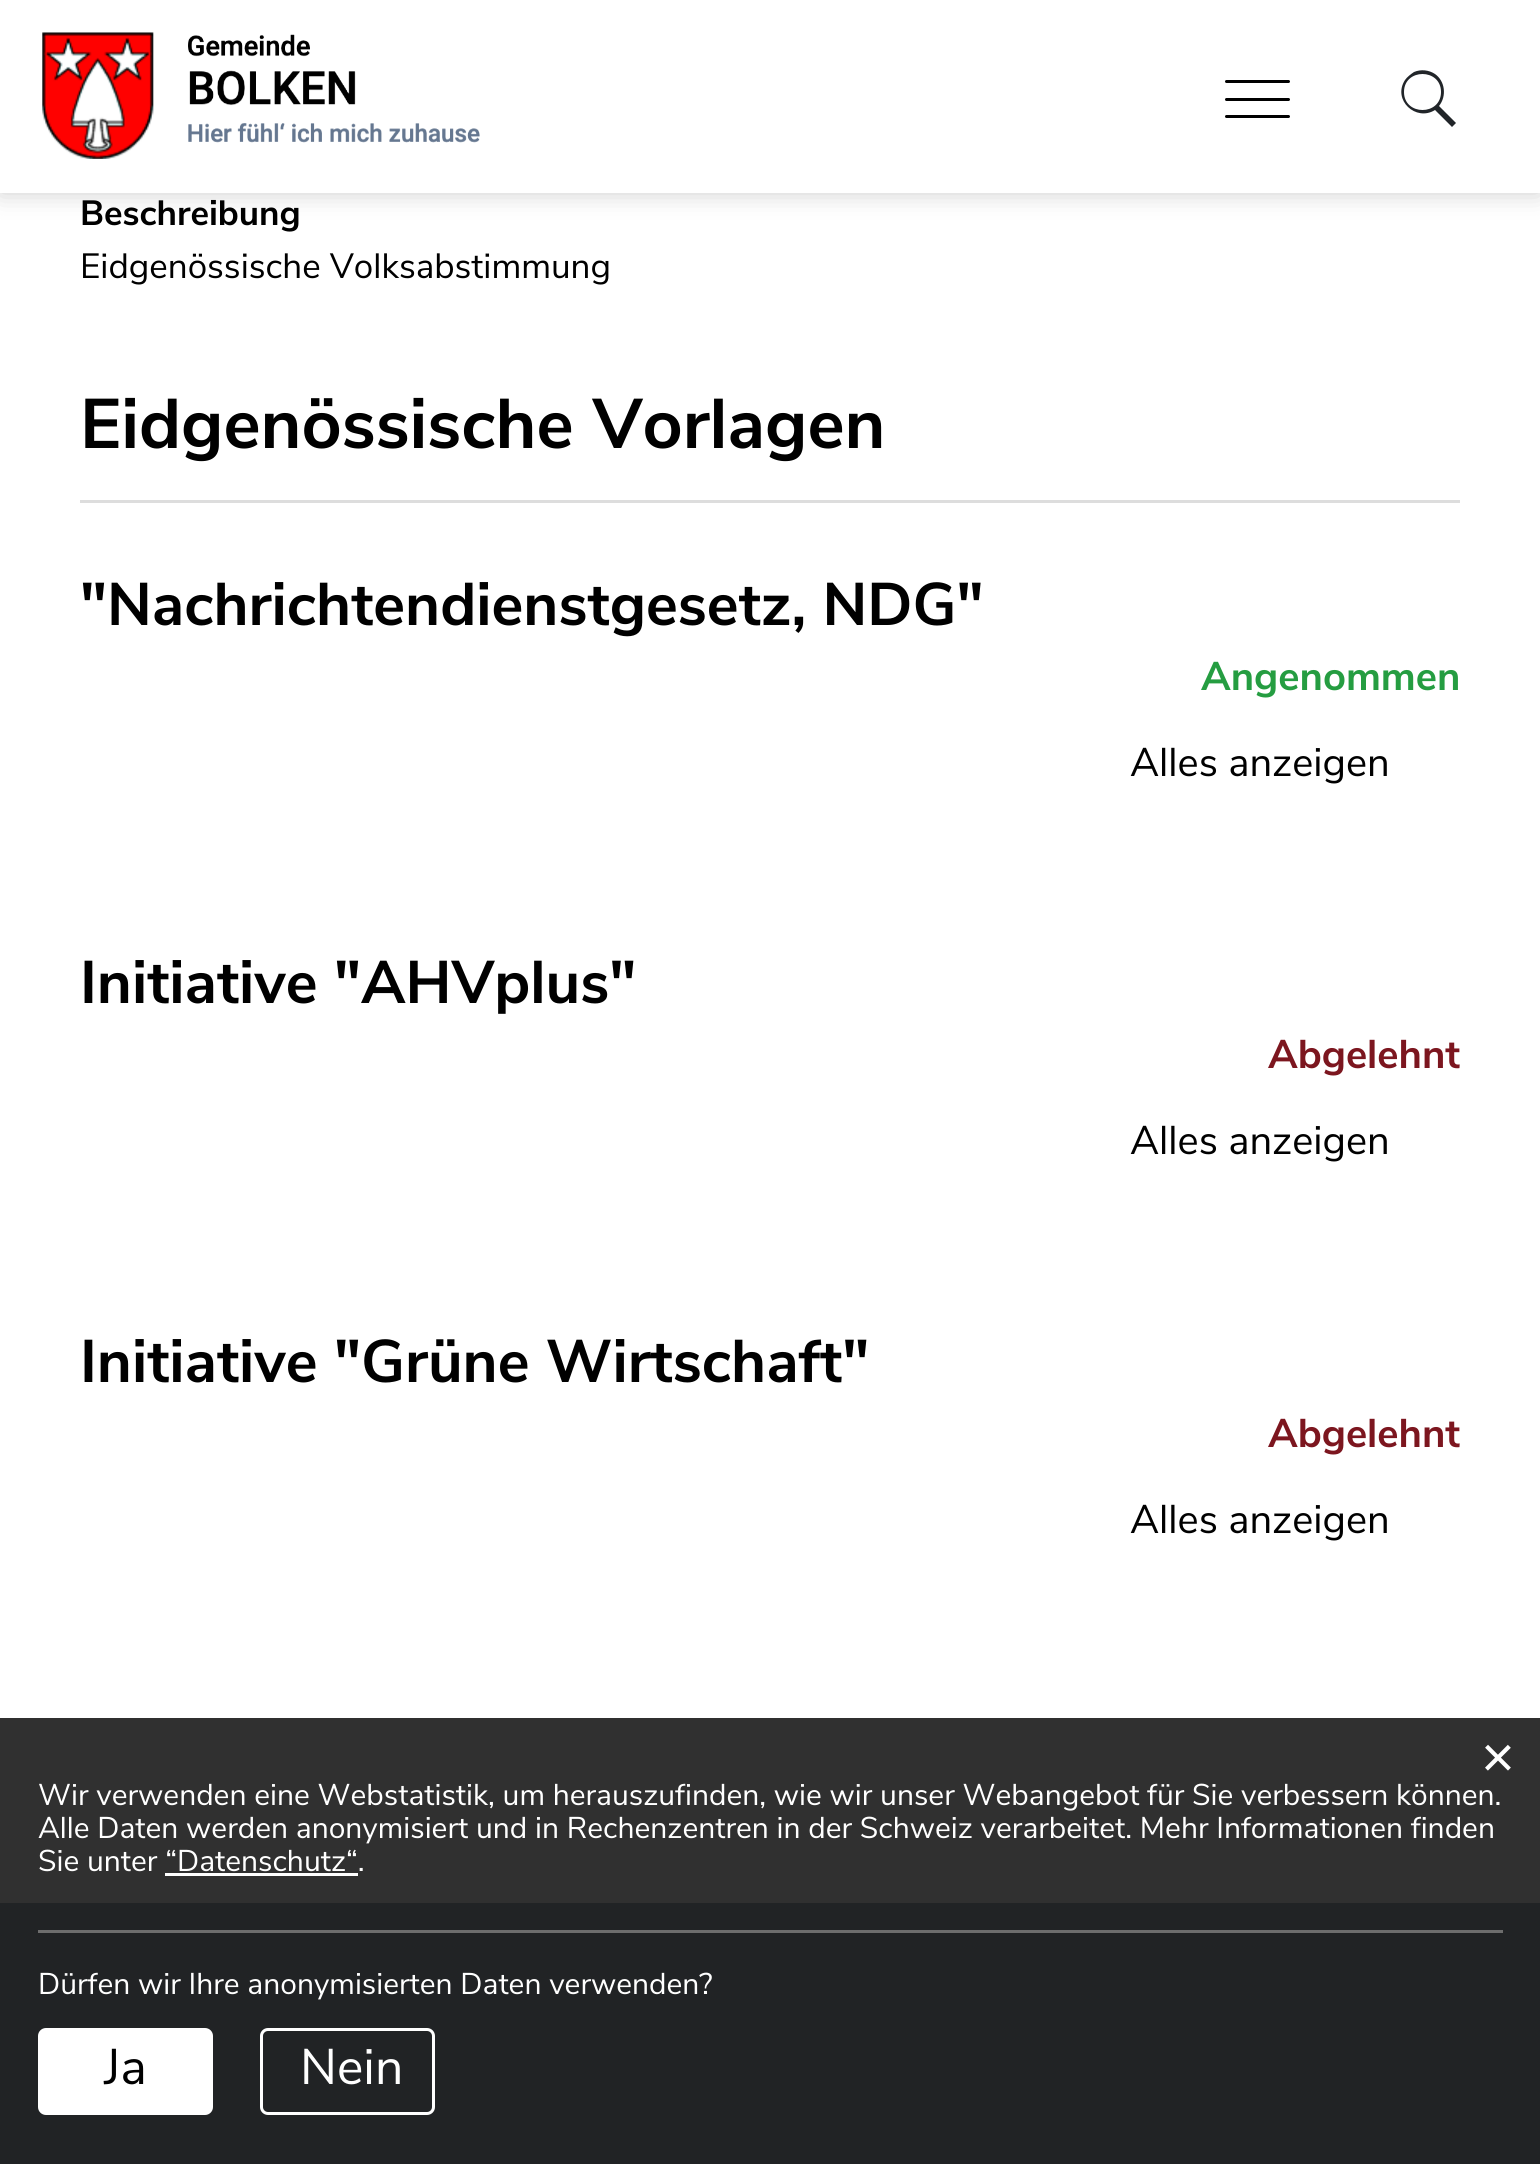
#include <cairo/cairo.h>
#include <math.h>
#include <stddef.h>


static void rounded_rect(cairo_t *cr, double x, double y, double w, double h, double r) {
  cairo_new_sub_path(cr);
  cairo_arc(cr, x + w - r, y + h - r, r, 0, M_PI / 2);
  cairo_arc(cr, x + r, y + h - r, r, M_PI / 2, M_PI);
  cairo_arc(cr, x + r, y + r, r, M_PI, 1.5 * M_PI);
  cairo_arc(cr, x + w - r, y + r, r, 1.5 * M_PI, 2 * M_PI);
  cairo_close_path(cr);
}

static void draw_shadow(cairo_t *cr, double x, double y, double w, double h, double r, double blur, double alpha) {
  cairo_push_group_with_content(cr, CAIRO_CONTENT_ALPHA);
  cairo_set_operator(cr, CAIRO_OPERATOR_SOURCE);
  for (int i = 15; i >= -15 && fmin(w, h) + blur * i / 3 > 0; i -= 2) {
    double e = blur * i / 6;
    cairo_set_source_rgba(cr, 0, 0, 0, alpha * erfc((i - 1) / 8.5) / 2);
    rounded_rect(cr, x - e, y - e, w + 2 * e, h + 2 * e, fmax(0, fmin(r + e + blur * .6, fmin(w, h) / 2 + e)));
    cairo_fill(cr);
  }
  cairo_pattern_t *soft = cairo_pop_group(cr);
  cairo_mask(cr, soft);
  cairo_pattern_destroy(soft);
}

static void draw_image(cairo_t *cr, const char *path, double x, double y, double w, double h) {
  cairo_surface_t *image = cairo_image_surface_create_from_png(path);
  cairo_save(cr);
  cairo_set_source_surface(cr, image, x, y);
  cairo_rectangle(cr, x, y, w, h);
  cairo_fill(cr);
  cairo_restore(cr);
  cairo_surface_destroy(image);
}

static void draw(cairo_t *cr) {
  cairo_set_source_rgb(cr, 1, 1, 1);
  cairo_paint(cr);
  cairo_set_source_rgb(cr, 48 / 255.0, 48 / 255.0, 48 / 255.0);
  cairo_rectangle(cr, 0, 1718, 1540, 185);
  cairo_fill(cr);
  cairo_set_source_rgb(cr, 0, 0, 0);
  draw_shadow(cr, 0, 0, 1540, 193, 0, 12.5, 0.2);
  cairo_set_source_rgb(cr, 1, 1, 1);
  cairo_rectangle(cr, 0, 0, 1540, 193);
  cairo_fill(cr);
  draw_image(cr, "images/1.png", 42, 32, 438, 127);
  cairo_set_source_rgb(cr, 33 / 255.0, 37 / 255.0, 41 / 255.0);
  cairo_new_path(cr);
  cairo_move_to(cr, 1456, 123);
  cairo_line_to(cr, 1439, 106);
  cairo_curve_to(cr, 1447, 96, 1445, 81, 1435, 74);
  cairo_curve_to(cr, 1429, 70, 1421, 69, 1414, 72);
  cairo_curve_to(cr, 1411, 74, 1407, 77, 1405, 80);
  cairo_curve_to(cr, 1392, 100, 1416, 122, 1435, 110);
  cairo_line_to(cr, 1452, 127);
  cairo_close_path(cr);
  cairo_move_to(cr, 1404, 92);
  cairo_curve_to(cr, 1404, 68, 1441, 68, 1441, 92);
  cairo_curve_to(cr, 1441, 116, 1404, 116, 1404, 92);
  cairo_close_path(cr);
  cairo_fill(cr);
  cairo_set_source_rgb(cr, 0, 0, 0);
  rounded_rect(cr, 1225, 80, 65, 3, 1.5);
  cairo_fill(cr);
  rounded_rect(cr, 1225, 98, 65, 3, 1.5);
  cairo_fill(cr);
  rounded_rect(cr, 1225, 115, 65, 3, 1.5);
  cairo_fill(cr);
  cairo_set_source_rgb(cr, 221 / 255.0, 221 / 255.0, 221 / 255.0);
  cairo_rectangle(cr, 80, 500, 1380, 3);
  cairo_fill(cr);
  cairo_set_source_rgb(cr, 33 / 255.0, 35 / 255.0, 37 / 255.0);
  cairo_rectangle(cr, 0, 1903, 1540, 261);
  cairo_fill(cr);
  cairo_set_source_rgb(cr, 109 / 255.0, 109 / 255.0, 109 / 255.0);
  cairo_rectangle(cr, 38, 1930, 1465, 3);
  cairo_fill(cr);
  cairo_set_source_rgb(cr, 1, 1, 1);
  cairo_rectangle(cr, 165, 1873, 193, 3);
  cairo_fill(cr);
  rounded_rect(cr, 39.5, 2029.5, 172, 84, 6.5);
  cairo_fill_preserve(cr);
  cairo_set_line_width(cr, 3);
  cairo_stroke(cr);
  rounded_rect(cr, 261.5, 2029.5, 172, 84, 6.5);
  cairo_stroke(cr);
  cairo_select_font_face(cr, "Nunito Sans", CAIRO_FONT_SLANT_NORMAL, CAIRO_FONT_WEIGHT_BOLD);
  cairo_set_font_size(cr, 35);
  cairo_set_source_rgb(cr, 0, 0, 0);
  cairo_move_to(cr, 80, 225);
  cairo_show_text(cr, "Beschreibung");
  cairo_select_font_face(cr, "Nunito Sans", CAIRO_FONT_SLANT_NORMAL, CAIRO_FONT_WEIGHT_NORMAL);
  cairo_move_to(cr, 80, 278);
  cairo_show_text(cr, "Eidgenössische Volksabstimmung");
  cairo_select_font_face(cr, "Nunito Sans", CAIRO_FONT_SLANT_NORMAL, CAIRO_FONT_WEIGHT_BOLD);
  cairo_set_font_size(cr, 70);
  cairo_move_to(cr, 80, 448);
  cairo_show_text(cr, "Eidgenössische Vorlagen");
  cairo_set_font_size(cr, 60);
  cairo_move_to(cr, 80, 625);
  cairo_show_text(cr, "\"Nachrichtendienstgesetz, NDG\"");
  cairo_set_font_size(cr, 40);
  cairo_set_source_rgb(cr, 37 / 255.0, 157 / 255.0, 65 / 255.0);
  cairo_move_to(cr, 1201, 690);
  cairo_show_text(cr, "Angenommen");
  cairo_select_font_face(cr, "Nunito Sans", CAIRO_FONT_SLANT_NORMAL, CAIRO_FONT_WEIGHT_NORMAL);
  cairo_set_source_rgb(cr, 0, 0, 0);
  cairo_move_to(cr, 1130, 776);
  cairo_show_text(cr, "Alles anzeigen");
  cairo_select_font_face(cr, "Nunito Sans", CAIRO_FONT_SLANT_NORMAL, CAIRO_FONT_WEIGHT_BOLD);
  cairo_set_font_size(cr, 60);
  cairo_move_to(cr, 80, 1003);
  cairo_show_text(cr, "Initiative \"AHVplus\"");
  cairo_set_font_size(cr, 40);
  cairo_set_source_rgb(cr, 124 / 255.0, 22 / 255.0, 31 / 255.0);
  cairo_move_to(cr, 1268, 1068);
  cairo_show_text(cr, "Abgelehnt");
  cairo_select_font_face(cr, "Nunito Sans", CAIRO_FONT_SLANT_NORMAL, CAIRO_FONT_WEIGHT_NORMAL);
  cairo_set_source_rgb(cr, 0, 0, 0);
  cairo_move_to(cr, 1130, 1154);
  cairo_show_text(cr, "Alles anzeigen");
  cairo_select_font_face(cr, "Nunito Sans", CAIRO_FONT_SLANT_NORMAL, CAIRO_FONT_WEIGHT_BOLD);
  cairo_set_font_size(cr, 60);
  cairo_move_to(cr, 80, 1382);
  cairo_show_text(cr, "Initiative \"Grüne Wirtschaft\"");
  cairo_set_font_size(cr, 40);
  cairo_set_source_rgb(cr, 124 / 255.0, 22 / 255.0, 31 / 255.0);
  cairo_move_to(cr, 1268, 1447);
  cairo_show_text(cr, "Abgelehnt");
  cairo_select_font_face(cr, "Nunito Sans", CAIRO_FONT_SLANT_NORMAL, CAIRO_FONT_WEIGHT_NORMAL);
  cairo_set_source_rgb(cr, 0, 0, 0);
  cairo_move_to(cr, 1130, 1533);
  cairo_show_text(cr, "Alles anzeigen");
  cairo_select_font_face(cr, "Liberation Sans", CAIRO_FONT_SLANT_NORMAL, CAIRO_FONT_WEIGHT_NORMAL);
  cairo_set_font_size(cr, 58);
  cairo_set_source_rgb(cr, 1, 1, 1);
  cairo_move_to(cr, 1481, 1777);
  cairo_show_text(cr, "×");
  cairo_select_font_face(cr, "Nunito Sans", CAIRO_FONT_SLANT_NORMAL, CAIRO_FONT_WEIGHT_NORMAL);
  cairo_set_font_size(cr, 30);
  cairo_move_to(cr, 38, 1805);
  cairo_show_text(cr, "Wir verwenden eine Webstatistik, um herauszufinden, wie wir unser Webangebot für Sie verbessern können.");
  cairo_move_to(cr, 38, 1838);
  cairo_show_text(cr, "Alle Daten werden anonymisiert und in Rechenzentren in der Schweiz verarbeitet. Mehr Informationen finden");
  cairo_move_to(cr, 38, 1871);
  cairo_show_text(cr, "Sie unter “Datenschutz“.");
  cairo_move_to(cr, 38, 1994);
  cairo_show_text(cr, "Dürfen wir Ihre anonymisierten Daten verwenden?");
  cairo_set_font_size(cr, 50);
  cairo_set_source_rgb(cr, 0, 0, 0);
  cairo_move_to(cr, 104, 2084);
  cairo_show_text(cr, "Ja");
  cairo_set_source_rgb(cr, 1, 1, 1);
  cairo_move_to(cr, 300, 2084);
  cairo_show_text(cr, "Nein");
}

int main(void) {
  cairo_surface_t *surface = cairo_image_surface_create(CAIRO_FORMAT_RGB24, 1540, 2164);
  cairo_t *cr = cairo_create(surface);
  cairo_font_options_t *options = cairo_font_options_create();
  cairo_font_options_set_hint_metrics(options, CAIRO_HINT_METRICS_OFF);
  cairo_font_options_set_hint_style(options, CAIRO_HINT_STYLE_NONE);
  cairo_set_font_options(cr, options);
  cairo_set_miter_limit(cr, 4);
  draw(cr);
  cairo_surface_write_to_png(surface, "out.png");
  cairo_font_options_destroy(options);
  cairo_destroy(cr);
  cairo_surface_destroy(surface);
  return 0;
}
